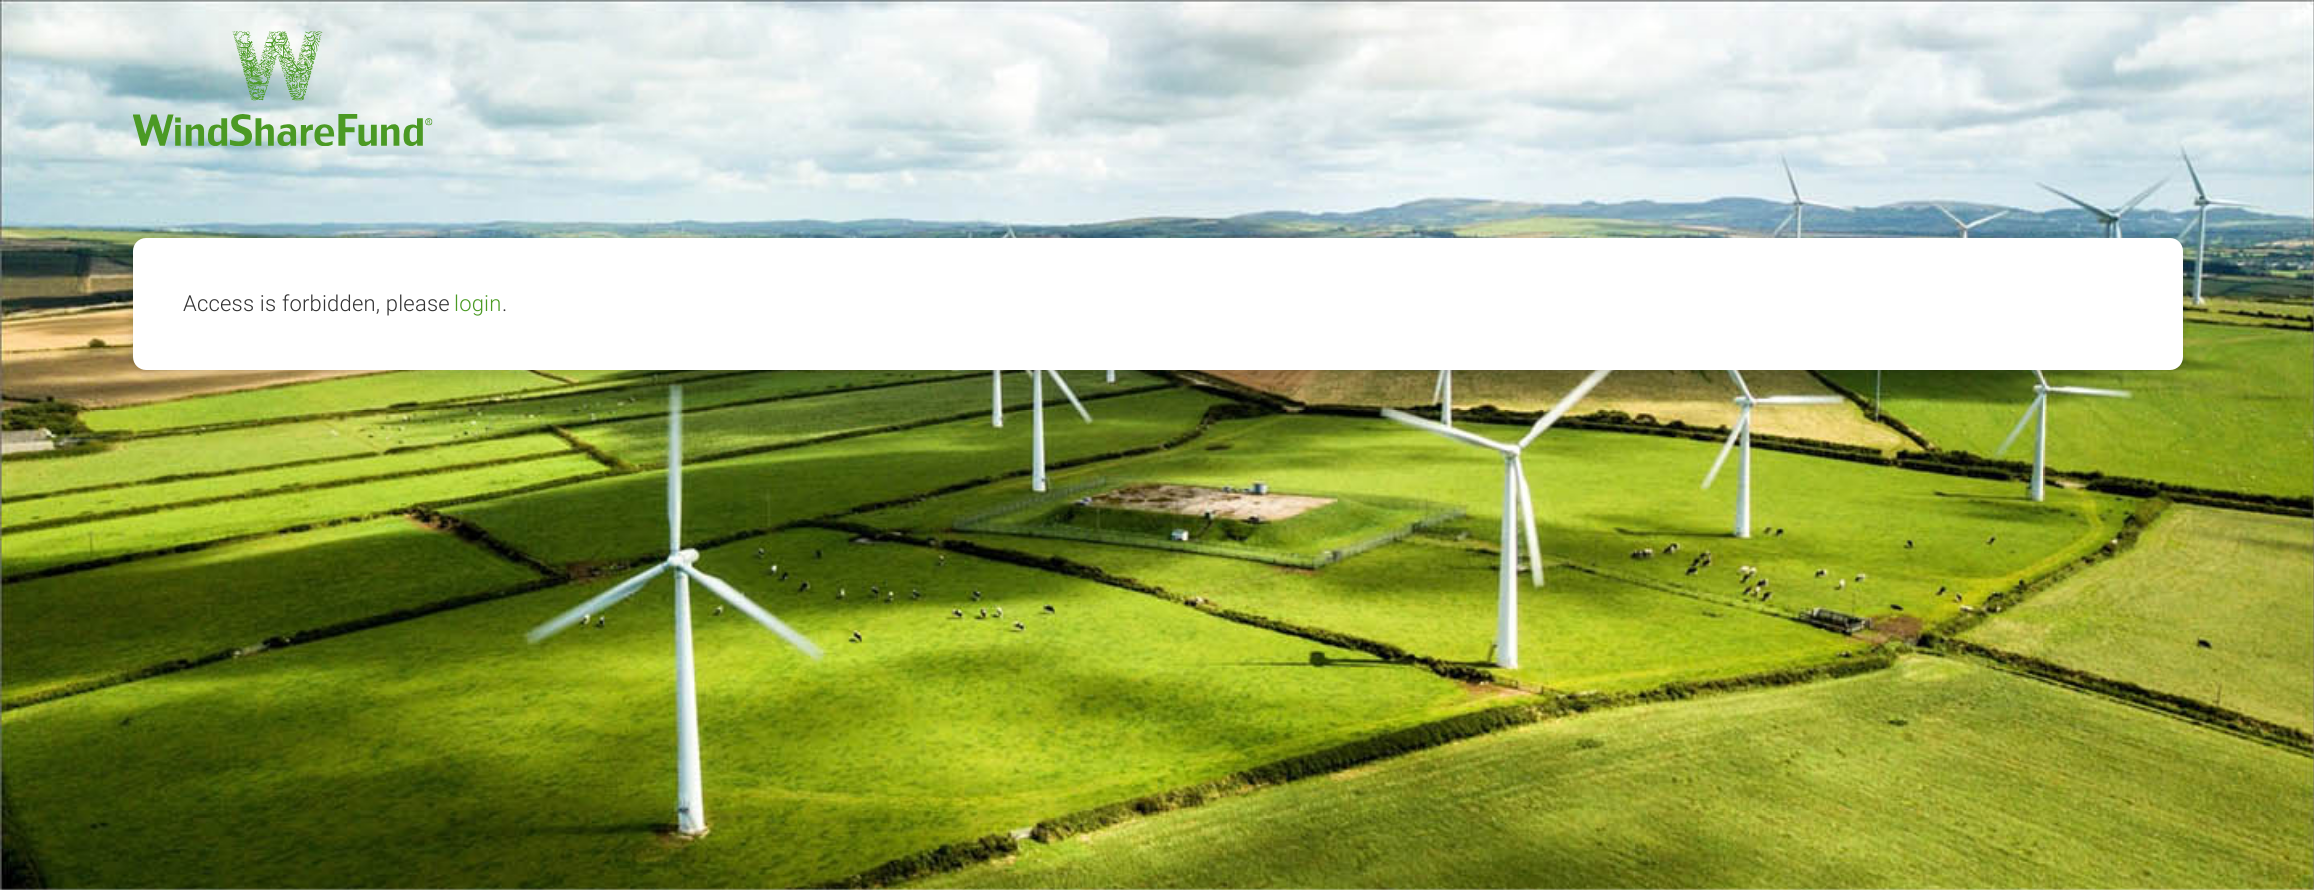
#include <cairo/cairo.h>
#include <math.h>
#include <stddef.h>


static void draw_spaced(cairo_t *cr, double x, double y, const char *s, double letter, double word) {
  cairo_move_to(cr, x, y);
  while (*s) {
    char ch[5] = {0};
    int n = 0;
    do ch[n++] = *s++; while ((*s & 0xC0) == 0x80);
    cairo_show_text(cr, ch);
    cairo_rel_move_to(cr, letter + word * (*ch == ' '), 0);
  }
}

static void rounded_rect(cairo_t *cr, double x, double y, double w, double h, double r) {
  cairo_new_sub_path(cr);
  cairo_arc(cr, x + w - r, y + h - r, r, 0, M_PI / 2);
  cairo_arc(cr, x + r, y + h - r, r, M_PI / 2, M_PI);
  cairo_arc(cr, x + r, y + r, r, M_PI, 1.5 * M_PI);
  cairo_arc(cr, x + w - r, y + r, r, 1.5 * M_PI, 2 * M_PI);
  cairo_close_path(cr);
}

static void draw_shadow(cairo_t *cr, double x, double y, double w, double h, double r, double blur, double alpha) {
  cairo_push_group_with_content(cr, CAIRO_CONTENT_ALPHA);
  cairo_set_operator(cr, CAIRO_OPERATOR_SOURCE);
  for (int i = 15; i >= -15 && fmin(w, h) + blur * i / 3 > 0; i -= 2) {
    double e = blur * i / 6;
    cairo_set_source_rgba(cr, 0, 0, 0, alpha * erfc((i - 1) / 8.5) / 2);
    rounded_rect(cr, x - e, y - e, w + 2 * e, h + 2 * e, fmax(0, fmin(r + e + blur * .6, fmin(w, h) / 2 + e)));
    cairo_fill(cr);
  }
  cairo_pattern_t *soft = cairo_pop_group(cr);
  cairo_mask(cr, soft);
  cairo_pattern_destroy(soft);
}

static void draw_image(cairo_t *cr, const char *path, double x, double y, double w, double h) {
  cairo_surface_t *image = cairo_image_surface_create_from_png(path);
  cairo_save(cr);
  cairo_set_source_surface(cr, image, x, y);
  cairo_rectangle(cr, x, y, w, h);
  cairo_fill(cr);
  cairo_restore(cr);
  cairo_surface_destroy(image);
}

static void draw(cairo_t *cr) {
  cairo_set_source_rgb(cr, 1, 1, 1);
  cairo_paint(cr);
  draw_image(cr, "images/2.png", 0, 0, 2314, 890);
  draw_image(cr, "images/1.png", 133, 31, 300, 115);
  cairo_set_source_rgb(cr, 0, 0, 0);
  draw_shadow(cr, 133, 241, 2050, 133, 13, 6, 0.16);
  cairo_set_source_rgb(cr, 1, 1, 1);
  rounded_rect(cr, 133, 238, 2050, 132, 13);
  cairo_fill(cr);
  cairo_select_font_face(cr, "Roboto Light", CAIRO_FONT_SLANT_NORMAL, CAIRO_FONT_WEIGHT_NORMAL);
  cairo_set_font_size(cr, 22);
  cairo_set_source_rgb(cr, 51 / 255.0, 51 / 255.0, 51 / 255.0);
  draw_spaced(cr, 183, 311, "Access is forbidden, please", 0.2, 0);
  cairo_set_source_rgb(cr, 75 / 255.0, 154 / 255.0, 36 / 255.0);
  draw_spaced(cr, 454, 311, "login", 0.2, 0);
  cairo_set_source_rgb(cr, 51 / 255.0, 51 / 255.0, 51 / 255.0);
  draw_spaced(cr, 502, 311, ".", 0.2, 0);
}

int main(void) {
  cairo_surface_t *surface = cairo_image_surface_create(CAIRO_FORMAT_RGB24, 2314, 890);
  cairo_t *cr = cairo_create(surface);
  cairo_font_options_t *options = cairo_font_options_create();
  cairo_font_options_set_hint_metrics(options, CAIRO_HINT_METRICS_OFF);
  cairo_font_options_set_hint_style(options, CAIRO_HINT_STYLE_NONE);
  cairo_set_font_options(cr, options);
  cairo_set_miter_limit(cr, 4);
  draw(cr);
  cairo_surface_write_to_png(surface, "out.png");
  cairo_font_options_destroy(options);
  cairo_destroy(cr);
  cairo_surface_destroy(surface);
  return 0;
}
